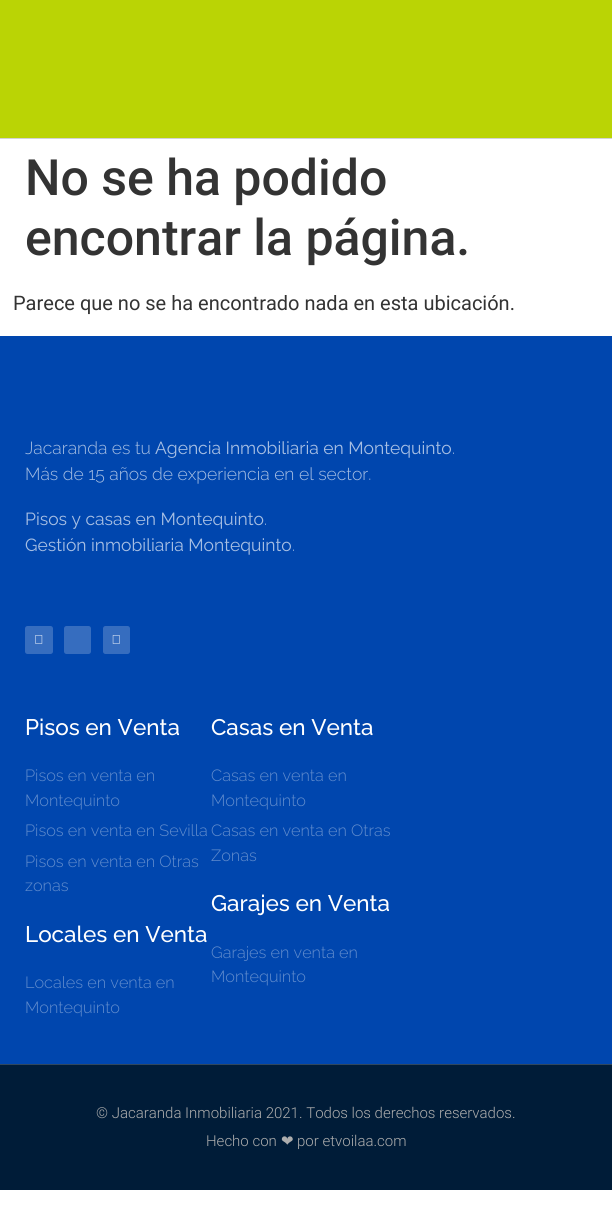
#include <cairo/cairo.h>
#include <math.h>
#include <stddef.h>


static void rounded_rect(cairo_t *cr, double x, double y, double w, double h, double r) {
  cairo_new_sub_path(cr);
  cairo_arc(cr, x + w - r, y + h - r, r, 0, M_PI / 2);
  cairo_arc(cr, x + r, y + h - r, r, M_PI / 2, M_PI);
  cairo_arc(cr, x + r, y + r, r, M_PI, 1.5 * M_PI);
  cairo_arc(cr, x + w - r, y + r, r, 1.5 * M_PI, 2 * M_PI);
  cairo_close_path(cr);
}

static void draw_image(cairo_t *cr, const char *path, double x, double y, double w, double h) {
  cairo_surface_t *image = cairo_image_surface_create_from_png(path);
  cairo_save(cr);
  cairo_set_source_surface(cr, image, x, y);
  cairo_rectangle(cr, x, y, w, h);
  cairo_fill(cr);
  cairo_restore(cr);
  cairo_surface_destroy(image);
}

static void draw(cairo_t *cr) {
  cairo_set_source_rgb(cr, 1, 1, 1);
  cairo_paint(cr);
  cairo_set_source_rgb(cr, 186 / 255.0, 212 / 255.0, 5 / 255.0);
  cairo_rectangle(cr, 0, 0, 612, 138);
  cairo_fill(cr);
  cairo_set_source_rgb(cr, 211 / 255.0, 211 / 255.0, 211 / 255.0);
  cairo_rectangle(cr, 0, 138, 612, 1);
  cairo_fill(cr);
  cairo_set_source_rgb(cr, 0, 70 / 255.0, 174 / 255.0);
  cairo_rectangle(cr, 0, 336, 612, 728);
  cairo_fill(cr);
  cairo_set_source_rgb(cr, 54 / 255.0, 109 / 255.0, 191 / 255.0);
  rounded_rect(cr, 25, 626, 28, 28, 2.5);
  cairo_fill(cr);
  draw_image(cr, "images/1.png", 35, 635, 8, 9);
  rounded_rect(cr, 64, 626, 27, 28, 2.5);
  cairo_fill(cr);
  rounded_rect(cr, 103, 626, 27, 28, 2.5);
  cairo_fill(cr);
  draw_image(cr, "images/2.png", 112, 635, 8, 9);
  cairo_set_source_rgb(cr, 0, 28 / 255.0, 56 / 255.0);
  cairo_rectangle(cr, 0, 1065, 612, 125);
  cairo_fill(cr);
  cairo_set_source_rgb(cr, 48 / 255.0, 71 / 255.0, 94 / 255.0);
  cairo_rectangle(cr, 0, 1064, 612, 1);
  cairo_fill(cr);
  cairo_select_font_face(cr, "Roboto Medium", CAIRO_FONT_SLANT_NORMAL, CAIRO_FONT_WEIGHT_NORMAL);
  cairo_set_font_size(cr, 50);
  cairo_set_source_rgb(cr, 51 / 255.0, 51 / 255.0, 51 / 255.0);
  cairo_move_to(cr, 25, 195);
  cairo_show_text(cr, "No se ha podido");
  cairo_move_to(cr, 25, 255);
  cairo_show_text(cr, "encontrar la página.");
  cairo_select_font_face(cr, "Roboto", CAIRO_FONT_SLANT_NORMAL, CAIRO_FONT_WEIGHT_NORMAL);
  cairo_set_font_size(cr, 20);
  cairo_move_to(cr, 13, 310);
  cairo_show_text(cr, "Parece que no se ha encontrado nada en esta ubicación.");
  cairo_select_font_face(cr, "Raleway Light", CAIRO_FONT_SLANT_NORMAL, CAIRO_FONT_WEIGHT_NORMAL);
  cairo_set_font_size(cr, 17.5);
  cairo_set_source_rgb(cr, 166 / 255.0, 190 / 255.0, 227 / 255.0);
  cairo_move_to(cr, 25, 454);
  cairo_show_text(cr, "Jacaranda es tu");
  cairo_select_font_face(cr, "Raleway", CAIRO_FONT_SLANT_NORMAL, CAIRO_FONT_WEIGHT_NORMAL);
  cairo_move_to(cr, 155, 454);
  cairo_show_text(cr, "Agencia Inmobiliaria en Montequinto");
  cairo_select_font_face(cr, "Raleway Light", CAIRO_FONT_SLANT_NORMAL, CAIRO_FONT_WEIGHT_NORMAL);
  cairo_move_to(cr, 452, 454);
  cairo_show_text(cr, ".");
  cairo_move_to(cr, 25, 480);
  cairo_show_text(cr, "Más de 15 años de experiencia en el sector.");
  cairo_select_font_face(cr, "Raleway", CAIRO_FONT_SLANT_NORMAL, CAIRO_FONT_WEIGHT_NORMAL);
  cairo_move_to(cr, 25, 525);
  cairo_show_text(cr, "Pisos y casas en Montequinto");
  cairo_select_font_face(cr, "Raleway Light", CAIRO_FONT_SLANT_NORMAL, CAIRO_FONT_WEIGHT_NORMAL);
  cairo_move_to(cr, 264, 525);
  cairo_show_text(cr, ".");
  cairo_select_font_face(cr, "Raleway", CAIRO_FONT_SLANT_NORMAL, CAIRO_FONT_WEIGHT_NORMAL);
  cairo_move_to(cr, 25, 551);
  cairo_show_text(cr, "Gestión inmobiliaria Montequinto");
  cairo_select_font_face(cr, "Raleway Light", CAIRO_FONT_SLANT_NORMAL, CAIRO_FONT_WEIGHT_NORMAL);
  cairo_move_to(cr, 292, 551);
  cairo_show_text(cr, ".");
  cairo_select_font_face(cr, "Raleway Medium", CAIRO_FONT_SLANT_NORMAL, CAIRO_FONT_WEIGHT_NORMAL);
  cairo_set_font_size(cr, 22.5);
  cairo_set_source_rgb(cr, 1, 1, 1);
  cairo_move_to(cr, 25, 735);
  cairo_show_text(cr, "Pisos en Venta");
  cairo_select_font_face(cr, "Raleway Light", CAIRO_FONT_SLANT_NORMAL, CAIRO_FONT_WEIGHT_NORMAL);
  cairo_set_font_size(cr, 16.25);
  cairo_set_source_rgb(cr, 97 / 255.0, 140 / 255.0, 205 / 255.0);
  cairo_move_to(cr, 25, 781);
  cairo_show_text(cr, "Pisos en venta en");
  cairo_move_to(cr, 25, 806);
  cairo_show_text(cr, "Montequinto");
  cairo_move_to(cr, 25, 836);
  cairo_show_text(cr, "Pisos en venta en Sevilla");
  cairo_move_to(cr, 25, 867);
  cairo_show_text(cr, "Pisos en venta en Otras");
  cairo_move_to(cr, 25, 891);
  cairo_show_text(cr, "zonas");
  cairo_select_font_face(cr, "Raleway Medium", CAIRO_FONT_SLANT_NORMAL, CAIRO_FONT_WEIGHT_NORMAL);
  cairo_set_font_size(cr, 22.5);
  cairo_set_source_rgb(cr, 1, 1, 1);
  cairo_move_to(cr, 25, 942);
  cairo_show_text(cr, "Locales en Venta");
  cairo_select_font_face(cr, "Raleway Light", CAIRO_FONT_SLANT_NORMAL, CAIRO_FONT_WEIGHT_NORMAL);
  cairo_set_font_size(cr, 16.25);
  cairo_set_source_rgb(cr, 97 / 255.0, 140 / 255.0, 205 / 255.0);
  cairo_move_to(cr, 25, 988);
  cairo_show_text(cr, "Locales en venta en");
  cairo_move_to(cr, 25, 1013);
  cairo_show_text(cr, "Montequinto");
  cairo_select_font_face(cr, "Raleway Medium", CAIRO_FONT_SLANT_NORMAL, CAIRO_FONT_WEIGHT_NORMAL);
  cairo_set_font_size(cr, 22.5);
  cairo_set_source_rgb(cr, 1, 1, 1);
  cairo_move_to(cr, 211, 735);
  cairo_show_text(cr, "Casas en Venta");
  cairo_select_font_face(cr, "Raleway Light", CAIRO_FONT_SLANT_NORMAL, CAIRO_FONT_WEIGHT_NORMAL);
  cairo_set_font_size(cr, 16.25);
  cairo_set_source_rgb(cr, 97 / 255.0, 140 / 255.0, 205 / 255.0);
  cairo_move_to(cr, 211, 781);
  cairo_show_text(cr, "Casas en venta en");
  cairo_move_to(cr, 211, 806);
  cairo_show_text(cr, "Montequinto");
  cairo_move_to(cr, 211, 836);
  cairo_show_text(cr, "Casas en venta en Otras");
  cairo_move_to(cr, 211, 861);
  cairo_show_text(cr, "Zonas");
  cairo_select_font_face(cr, "Raleway Medium", CAIRO_FONT_SLANT_NORMAL, CAIRO_FONT_WEIGHT_NORMAL);
  cairo_set_font_size(cr, 22.5);
  cairo_set_source_rgb(cr, 1, 1, 1);
  cairo_move_to(cr, 211, 911);
  cairo_show_text(cr, "Garajes en Venta");
  cairo_select_font_face(cr, "Raleway Light", CAIRO_FONT_SLANT_NORMAL, CAIRO_FONT_WEIGHT_NORMAL);
  cairo_set_font_size(cr, 16.25);
  cairo_set_source_rgb(cr, 97 / 255.0, 140 / 255.0, 205 / 255.0);
  cairo_move_to(cr, 211, 958);
  cairo_show_text(cr, "Garajes en venta en");
  cairo_move_to(cr, 211, 982);
  cairo_show_text(cr, "Montequinto");
  cairo_select_font_face(cr, "Roboto Light", CAIRO_FONT_SLANT_NORMAL, CAIRO_FONT_WEIGHT_NORMAL);
  cairo_set_font_size(cr, 15);
  cairo_set_source_rgb(cr, 173 / 255.0, 173 / 255.0, 173 / 255.0);
  cairo_move_to(cr, 96, 1118);
  cairo_show_text(cr, "© Jacaranda Inmobiliaria 2021. Todos los derechos reservados.");
  cairo_move_to(cr, 206, 1146);
  cairo_show_text(cr, "Hecho con");
  cairo_select_font_face(cr, "DejaVu Sans", CAIRO_FONT_SLANT_NORMAL, CAIRO_FONT_WEIGHT_NORMAL);
  cairo_move_to(cr, 281, 1146);
  cairo_show_text(cr, "❤");
  cairo_select_font_face(cr, "Roboto Light", CAIRO_FONT_SLANT_NORMAL, CAIRO_FONT_WEIGHT_NORMAL);
  cairo_move_to(cr, 297, 1146);
  cairo_show_text(cr, "por etvoilaa.com");
}

int main(void) {
  cairo_surface_t *surface = cairo_image_surface_create(CAIRO_FORMAT_RGB24, 612, 1229);
  cairo_t *cr = cairo_create(surface);
  cairo_font_options_t *options = cairo_font_options_create();
  cairo_font_options_set_hint_metrics(options, CAIRO_HINT_METRICS_OFF);
  cairo_font_options_set_hint_style(options, CAIRO_HINT_STYLE_NONE);
  cairo_set_font_options(cr, options);
  cairo_set_miter_limit(cr, 4);
  draw(cr);
  cairo_surface_write_to_png(surface, "out.png");
  cairo_font_options_destroy(options);
  cairo_destroy(cr);
  cairo_surface_destroy(surface);
  return 0;
}
